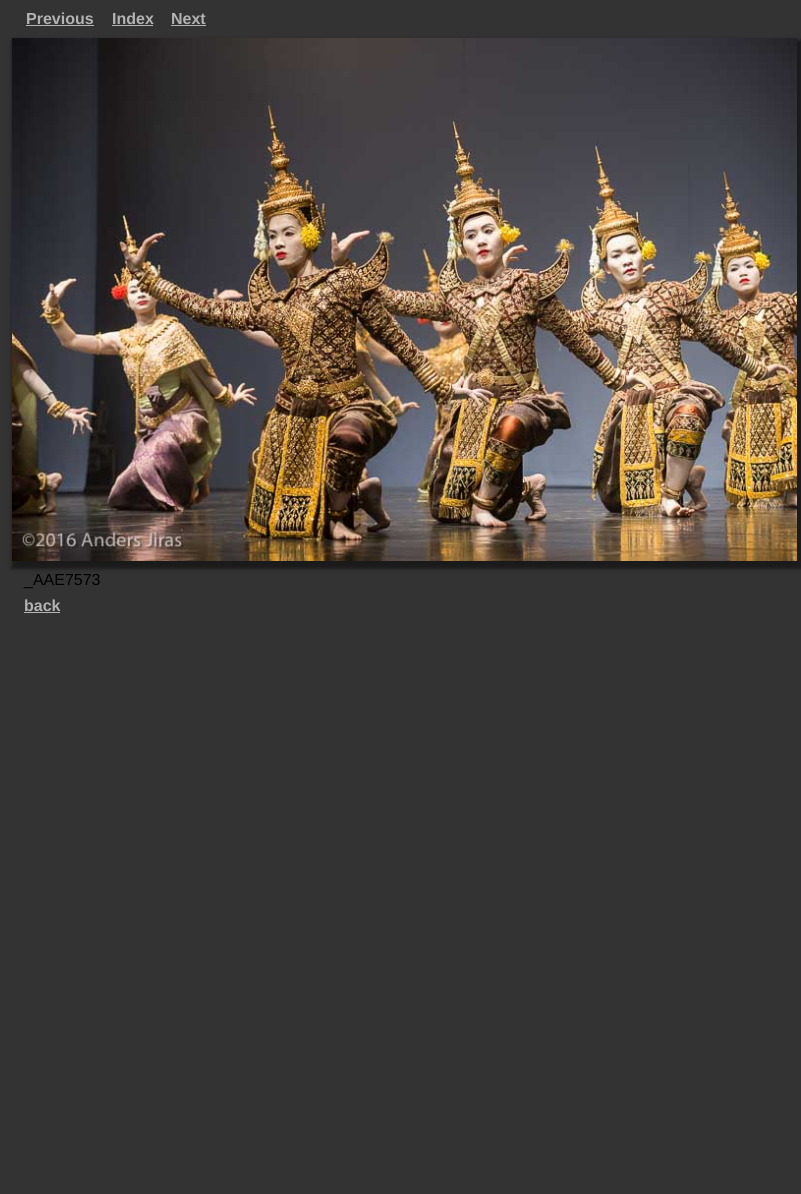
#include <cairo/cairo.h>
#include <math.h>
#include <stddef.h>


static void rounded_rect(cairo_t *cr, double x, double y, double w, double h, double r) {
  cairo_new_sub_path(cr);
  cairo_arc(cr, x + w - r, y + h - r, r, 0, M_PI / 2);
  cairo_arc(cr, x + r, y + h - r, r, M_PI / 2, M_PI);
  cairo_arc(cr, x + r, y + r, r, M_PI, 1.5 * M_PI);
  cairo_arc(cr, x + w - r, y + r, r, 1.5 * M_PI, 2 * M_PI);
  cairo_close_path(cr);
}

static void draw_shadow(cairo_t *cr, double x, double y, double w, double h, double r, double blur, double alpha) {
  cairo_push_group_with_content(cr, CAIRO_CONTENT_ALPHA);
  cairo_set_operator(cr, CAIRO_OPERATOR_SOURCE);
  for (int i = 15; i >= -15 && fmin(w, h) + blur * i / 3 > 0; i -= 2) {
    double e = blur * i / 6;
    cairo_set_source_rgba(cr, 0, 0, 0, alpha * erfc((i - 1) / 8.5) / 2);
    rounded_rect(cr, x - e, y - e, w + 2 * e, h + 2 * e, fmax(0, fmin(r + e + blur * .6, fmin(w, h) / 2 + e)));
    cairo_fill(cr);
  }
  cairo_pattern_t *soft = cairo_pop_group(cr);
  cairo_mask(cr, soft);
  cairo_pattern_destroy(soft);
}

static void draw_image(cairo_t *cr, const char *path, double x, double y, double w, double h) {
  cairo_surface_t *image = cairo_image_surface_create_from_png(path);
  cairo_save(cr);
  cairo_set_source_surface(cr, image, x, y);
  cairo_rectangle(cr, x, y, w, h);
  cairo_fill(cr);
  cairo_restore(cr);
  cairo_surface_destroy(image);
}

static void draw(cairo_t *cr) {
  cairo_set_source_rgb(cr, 51 / 255.0, 51 / 255.0, 51 / 255.0);
  cairo_paint(cr);
  cairo_set_source_rgb(cr, 179 / 255.0, 179 / 255.0, 179 / 255.0);
  cairo_rectangle(cr, 26, 25, 68, 1);
  cairo_fill(cr);
  cairo_rectangle(cr, 112, 25, 41, 1);
  cairo_fill(cr);
  cairo_rectangle(cr, 171, 25, 35, 1);
  cairo_fill(cr);
  cairo_set_source_rgb(cr, 26 / 255.0, 26 / 255.0, 26 / 255.0);
  draw_shadow(cr, 12, 40, 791, 529, 0, 2, 1);
  draw_image(cr, "images/1.png", 12, 38, 785, 523);
  cairo_set_source_rgb(cr, 179 / 255.0, 179 / 255.0, 179 / 255.0);
  cairo_rectangle(cr, 24, 612, 36, 1);
  cairo_fill(cr);
  cairo_select_font_face(cr, "Liberation Sans", CAIRO_FONT_SLANT_NORMAL, CAIRO_FONT_WEIGHT_BOLD);
  cairo_set_font_size(cr, 16);
  cairo_move_to(cr, 26, 24);
  cairo_show_text(cr, "Previous");
  cairo_move_to(cr, 112, 24);
  cairo_show_text(cr, "Index");
  cairo_move_to(cr, 171, 24);
  cairo_show_text(cr, "Next");
  cairo_select_font_face(cr, "Liberation Sans", CAIRO_FONT_SLANT_NORMAL, CAIRO_FONT_WEIGHT_NORMAL);
  cairo_set_source_rgb(cr, 0, 0, 0);
  cairo_move_to(cr, 24, 585);
  cairo_show_text(cr, "_AAE7573");
  cairo_select_font_face(cr, "Liberation Sans", CAIRO_FONT_SLANT_NORMAL, CAIRO_FONT_WEIGHT_BOLD);
  cairo_set_source_rgb(cr, 179 / 255.0, 179 / 255.0, 179 / 255.0);
  cairo_move_to(cr, 24, 611);
  cairo_show_text(cr, "back");
}

int main(void) {
  cairo_surface_t *surface = cairo_image_surface_create(CAIRO_FORMAT_RGB24, 801, 1194);
  cairo_t *cr = cairo_create(surface);
  cairo_font_options_t *options = cairo_font_options_create();
  cairo_font_options_set_hint_metrics(options, CAIRO_HINT_METRICS_OFF);
  cairo_font_options_set_hint_style(options, CAIRO_HINT_STYLE_NONE);
  cairo_set_font_options(cr, options);
  cairo_set_miter_limit(cr, 4);
  draw(cr);
  cairo_surface_write_to_png(surface, "out.png");
  cairo_font_options_destroy(options);
  cairo_destroy(cr);
  cairo_surface_destroy(surface);
  return 0;
}
